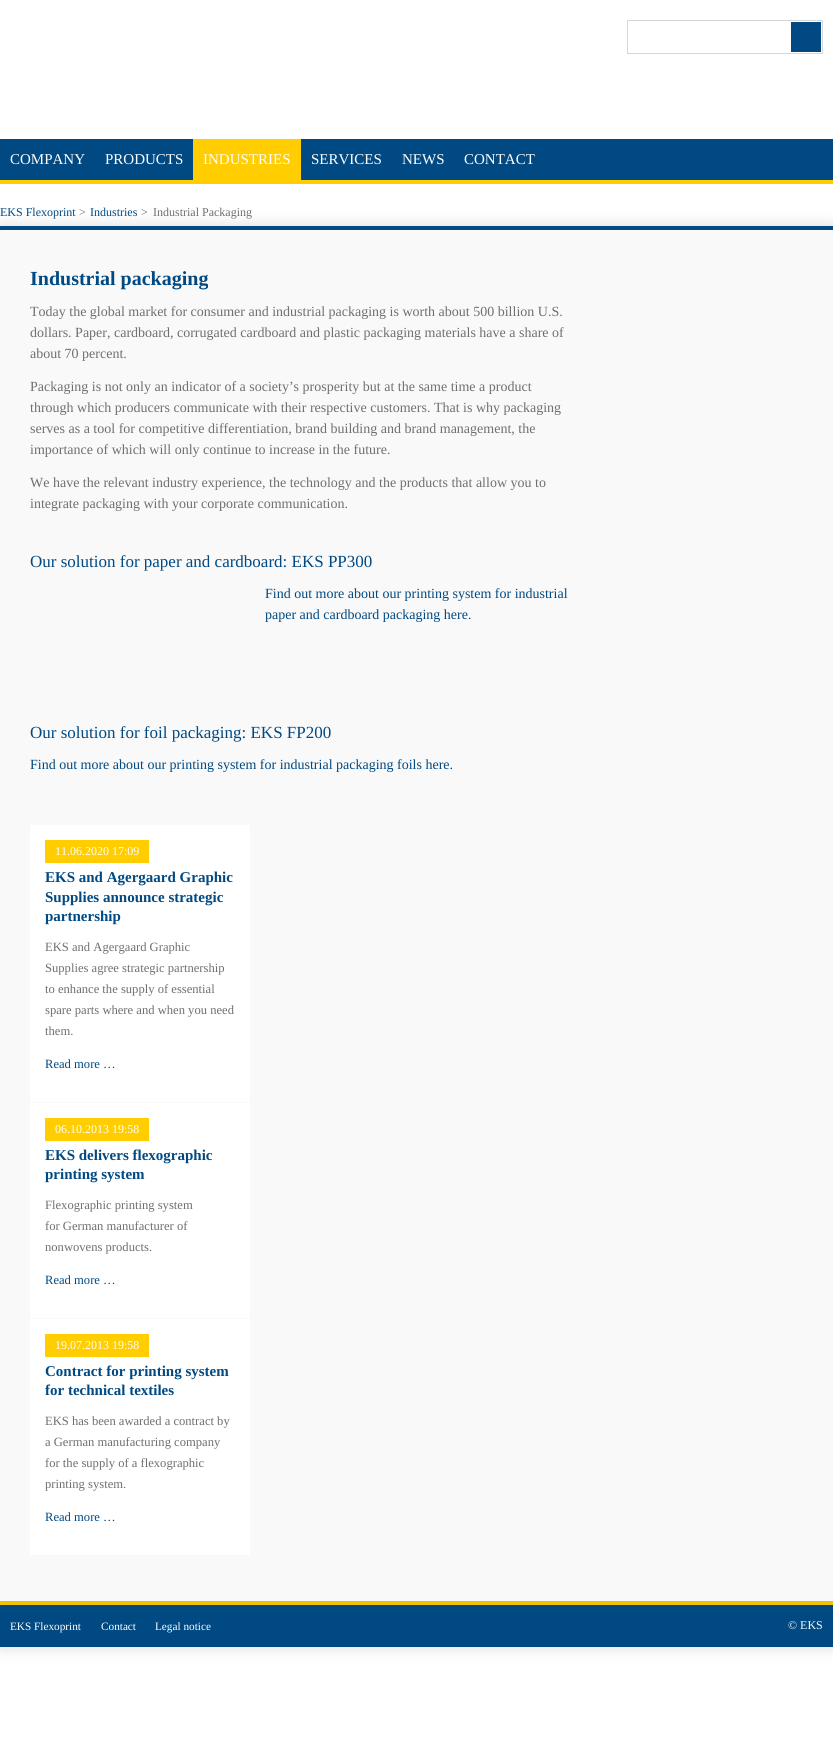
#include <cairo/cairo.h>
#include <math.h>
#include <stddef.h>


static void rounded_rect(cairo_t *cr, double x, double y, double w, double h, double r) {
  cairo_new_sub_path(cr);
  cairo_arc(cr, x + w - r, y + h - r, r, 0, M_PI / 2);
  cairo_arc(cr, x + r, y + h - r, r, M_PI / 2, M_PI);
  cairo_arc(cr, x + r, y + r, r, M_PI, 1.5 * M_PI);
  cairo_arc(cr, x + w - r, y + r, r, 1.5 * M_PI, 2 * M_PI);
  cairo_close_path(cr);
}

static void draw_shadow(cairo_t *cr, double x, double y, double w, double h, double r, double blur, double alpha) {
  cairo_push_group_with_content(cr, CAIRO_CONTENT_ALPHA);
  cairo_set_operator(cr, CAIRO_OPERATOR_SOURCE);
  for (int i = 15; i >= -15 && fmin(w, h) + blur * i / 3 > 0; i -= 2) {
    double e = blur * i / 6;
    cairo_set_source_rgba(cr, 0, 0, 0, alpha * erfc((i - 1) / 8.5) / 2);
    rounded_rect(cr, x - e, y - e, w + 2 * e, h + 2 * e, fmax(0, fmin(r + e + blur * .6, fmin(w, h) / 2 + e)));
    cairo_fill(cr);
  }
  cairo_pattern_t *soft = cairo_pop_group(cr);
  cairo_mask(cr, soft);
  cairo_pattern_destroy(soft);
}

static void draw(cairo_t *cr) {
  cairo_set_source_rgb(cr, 1, 1, 1);
  cairo_paint(cr);
  cairo_rectangle(cr, 627.5, 20.5, 195, 33);
  cairo_set_source_rgb(cr, 214 / 255.0, 214 / 255.0, 214 / 255.0);
  cairo_set_line_width(cr, 1);
  cairo_stroke(cr);
  cairo_set_source_rgb(cr, 0, 73 / 255.0, 130 / 255.0);
  cairo_rectangle(cr, 791, 22, 30, 30);
  cairo_fill(cr);
  cairo_rectangle(cr, 0, 139, 833, 41);
  cairo_fill(cr);
  cairo_set_source_rgb(cr, 1, 205 / 255.0, 0);
  cairo_rectangle(cr, 0, 180, 833, 4);
  cairo_fill(cr);
  cairo_rectangle(cr, 193, 139, 108, 41);
  cairo_fill(cr);
  cairo_set_source_rgb(cr, 51 / 255.0, 51 / 255.0, 51 / 255.0);
  draw_shadow(cr, 0, 1601, 833, 46, 0, 7.5, 0.2);
  cairo_set_source_rgb(cr, 0, 73 / 255.0, 130 / 255.0);
  cairo_rectangle(cr, 0, 1605, 833, 42);
  cairo_fill(cr);
  cairo_set_source_rgb(cr, 1, 205 / 255.0, 0);
  cairo_rectangle(cr, 0, 1601, 833, 4);
  cairo_fill(cr);
  cairo_set_source_rgb(cr, 51 / 255.0, 51 / 255.0, 51 / 255.0);
  draw_shadow(cr, 0, 226, 833, 1375, 0, 7.5, 0.2);
  cairo_set_source_rgb(cr, 249 / 255.0, 249 / 255.0, 249 / 255.0);
  cairo_rectangle(cr, 0, 230, 833, 1371);
  cairo_fill(cr);
  cairo_set_source_rgb(cr, 0, 73 / 255.0, 130 / 255.0);
  cairo_rectangle(cr, 0, 226, 833, 4);
  cairo_fill(cr);
  cairo_set_source_rgb(cr, 1, 1, 1);
  cairo_rectangle(cr, 30, 825, 220, 277);
  cairo_fill(cr);
  cairo_set_source_rgb(cr, 1, 205 / 255.0, 0);
  cairo_rectangle(cr, 45, 840, 104, 23);
  cairo_fill(cr);
  cairo_set_source_rgb(cr, 1, 1, 1);
  cairo_rectangle(cr, 30, 1103, 220, 215);
  cairo_fill(cr);
  cairo_set_source_rgb(cr, 1, 205 / 255.0, 0);
  cairo_rectangle(cr, 45, 1118, 104, 23);
  cairo_fill(cr);
  cairo_set_source_rgb(cr, 1, 1, 1);
  cairo_rectangle(cr, 30, 1319, 220, 236);
  cairo_fill(cr);
  cairo_set_source_rgb(cr, 1, 205 / 255.0, 0);
  cairo_rectangle(cr, 45, 1334, 104, 23);
  cairo_fill(cr);
  cairo_select_font_face(cr, "Liberation Serif", CAIRO_FONT_SLANT_NORMAL, CAIRO_FONT_WEIGHT_NORMAL);
  cairo_set_font_size(cr, 15);
  cairo_set_source_rgb(cr, 1, 1, 1);
  cairo_move_to(cr, 10, 164);
  cairo_show_text(cr, "COMPANY");
  cairo_move_to(cr, 105, 164);
  cairo_show_text(cr, "PRODUCTS");
  cairo_move_to(cr, 203, 164);
  cairo_show_text(cr, "INDUSTRIES");
  cairo_move_to(cr, 311, 164);
  cairo_show_text(cr, "SERVICES");
  cairo_move_to(cr, 402, 164);
  cairo_show_text(cr, "NEWS");
  cairo_move_to(cr, 464, 164);
  cairo_show_text(cr, "CONTACT");
  cairo_set_font_size(cr, 12);
  cairo_set_source_rgb(cr, 0, 73 / 255.0, 130 / 255.0);
  cairo_move_to(cr, 0, 216);
  cairo_show_text(cr, "EKS Flexoprint");
  cairo_set_source_rgb(cr, 102 / 255.0, 102 / 255.0, 102 / 255.0);
  cairo_move_to(cr, 79, 216);
  cairo_show_text(cr, ">");
  cairo_set_source_rgb(cr, 0, 73 / 255.0, 130 / 255.0);
  cairo_move_to(cr, 90, 216);
  cairo_show_text(cr, "Industries");
  cairo_set_source_rgb(cr, 102 / 255.0, 102 / 255.0, 102 / 255.0);
  cairo_move_to(cr, 141, 216);
  cairo_show_text(cr, ">");
  cairo_set_source_rgb(cr, 111 / 255.0, 111 / 255.0, 111 / 255.0);
  cairo_move_to(cr, 153, 216);
  cairo_show_text(cr, "Industrial Packaging");
  cairo_select_font_face(cr, "Liberation Serif", CAIRO_FONT_SLANT_NORMAL, CAIRO_FONT_WEIGHT_BOLD);
  cairo_set_font_size(cr, 20);
  cairo_set_source_rgb(cr, 0, 73 / 255.0, 130 / 255.0);
  cairo_move_to(cr, 30, 285);
  cairo_show_text(cr, "Industrial packaging");
  cairo_select_font_face(cr, "Liberation Serif", CAIRO_FONT_SLANT_NORMAL, CAIRO_FONT_WEIGHT_NORMAL);
  cairo_set_font_size(cr, 14);
  cairo_set_source_rgb(cr, 111 / 255.0, 111 / 255.0, 111 / 255.0);
  cairo_move_to(cr, 30, 316);
  cairo_show_text(cr, "Today the global market for consumer and industrial packaging is worth about 500 billion U.S.");
  cairo_move_to(cr, 30, 337);
  cairo_show_text(cr, "dollars. Paper, cardboard, corrugated cardboard and plastic packaging materials have a share of");
  cairo_move_to(cr, 30, 358);
  cairo_show_text(cr, "about 70 percent.");
  cairo_move_to(cr, 30, 391);
  cairo_show_text(cr, "Packaging is not only an indicator of a society’s prosperity but at the same time a product");
  cairo_move_to(cr, 30, 412);
  cairo_show_text(cr, "through which producers communicate with their respective customers. That is why packaging");
  cairo_move_to(cr, 30, 433);
  cairo_show_text(cr, "serves as a tool for competitive differentiation, brand building and brand management, the");
  cairo_move_to(cr, 30, 454);
  cairo_show_text(cr, "importance of which will only continue to increase in the future.");
  cairo_move_to(cr, 30, 487);
  cairo_show_text(cr, "We have the relevant industry experience, the technology and the products that allow you to");
  cairo_move_to(cr, 30, 508);
  cairo_show_text(cr, "integrate packaging with your corporate communication.");
  cairo_set_font_size(cr, 17);
  cairo_set_source_rgb(cr, 0, 73 / 255.0, 130 / 255.0);
  cairo_move_to(cr, 30, 567);
  cairo_show_text(cr, "Our solution for paper and cardboard: EKS PP300");
  cairo_set_font_size(cr, 14);
  cairo_move_to(cr, 265, 598);
  cairo_show_text(cr, "Find out more about our printing system for industrial");
  cairo_move_to(cr, 265, 619);
  cairo_show_text(cr, "paper and cardboard packaging here.");
  cairo_set_font_size(cr, 17);
  cairo_move_to(cr, 30, 738);
  cairo_show_text(cr, "Our solution for foil packaging: EKS FP200");
  cairo_set_font_size(cr, 14);
  cairo_move_to(cr, 30, 769);
  cairo_show_text(cr, "Find out more about our printing system for industrial packaging foils here.");
  cairo_set_font_size(cr, 12);
  cairo_set_source_rgb(cr, 1, 1, 1);
  cairo_move_to(cr, 55, 855);
  cairo_show_text(cr, "11.06.2020 17:09");
  cairo_select_font_face(cr, "Liberation Serif", CAIRO_FONT_SLANT_NORMAL, CAIRO_FONT_WEIGHT_BOLD);
  cairo_set_font_size(cr, 15);
  cairo_set_source_rgb(cr, 0, 73 / 255.0, 130 / 255.0);
  cairo_move_to(cr, 45, 882);
  cairo_show_text(cr, "EKS and Agergaard Graphic");
  cairo_move_to(cr, 45, 902);
  cairo_show_text(cr, "Supplies announce strategic");
  cairo_move_to(cr, 45, 921);
  cairo_show_text(cr, "partnership");
  cairo_select_font_face(cr, "Liberation Serif", CAIRO_FONT_SLANT_NORMAL, CAIRO_FONT_WEIGHT_NORMAL);
  cairo_set_font_size(cr, 12.6);
  cairo_set_source_rgb(cr, 111 / 255.0, 111 / 255.0, 111 / 255.0);
  cairo_move_to(cr, 45, 951);
  cairo_show_text(cr, "EKS and Agergaard Graphic");
  cairo_move_to(cr, 45, 972);
  cairo_show_text(cr, "Supplies agree strategic partnership");
  cairo_move_to(cr, 45, 993);
  cairo_show_text(cr, "to enhance the supply of essential");
  cairo_move_to(cr, 45, 1014);
  cairo_show_text(cr, "spare parts where and when you need");
  cairo_move_to(cr, 45, 1035);
  cairo_show_text(cr, "them.");
  cairo_set_source_rgb(cr, 0, 73 / 255.0, 130 / 255.0);
  cairo_move_to(cr, 45, 1068);
  cairo_show_text(cr, "Read more …");
  cairo_set_font_size(cr, 12);
  cairo_set_source_rgb(cr, 1, 1, 1);
  cairo_move_to(cr, 55, 1133);
  cairo_show_text(cr, "06.10.2013 19:58");
  cairo_select_font_face(cr, "Liberation Serif", CAIRO_FONT_SLANT_NORMAL, CAIRO_FONT_WEIGHT_BOLD);
  cairo_set_font_size(cr, 15);
  cairo_set_source_rgb(cr, 0, 73 / 255.0, 130 / 255.0);
  cairo_move_to(cr, 45, 1160);
  cairo_show_text(cr, "EKS delivers flexographic");
  cairo_move_to(cr, 45, 1179);
  cairo_show_text(cr, "printing system");
  cairo_select_font_face(cr, "Liberation Serif", CAIRO_FONT_SLANT_NORMAL, CAIRO_FONT_WEIGHT_NORMAL);
  cairo_set_font_size(cr, 12.6);
  cairo_set_source_rgb(cr, 111 / 255.0, 111 / 255.0, 111 / 255.0);
  cairo_move_to(cr, 45, 1209);
  cairo_show_text(cr, "Flexographic printing system");
  cairo_move_to(cr, 45, 1230);
  cairo_show_text(cr, "for German manufacturer of");
  cairo_move_to(cr, 45, 1251);
  cairo_show_text(cr, "nonwovens products.");
  cairo_set_source_rgb(cr, 0, 73 / 255.0, 130 / 255.0);
  cairo_move_to(cr, 45, 1284);
  cairo_show_text(cr, "Read more …");
  cairo_set_font_size(cr, 12);
  cairo_set_source_rgb(cr, 1, 1, 1);
  cairo_move_to(cr, 55, 1349);
  cairo_show_text(cr, "19.07.2013 19:58");
  cairo_select_font_face(cr, "Liberation Serif", CAIRO_FONT_SLANT_NORMAL, CAIRO_FONT_WEIGHT_BOLD);
  cairo_set_font_size(cr, 15);
  cairo_set_source_rgb(cr, 0, 73 / 255.0, 130 / 255.0);
  cairo_move_to(cr, 45, 1376);
  cairo_show_text(cr, "Contract for printing system");
  cairo_move_to(cr, 45, 1395);
  cairo_show_text(cr, "for technical textiles");
  cairo_select_font_face(cr, "Liberation Serif", CAIRO_FONT_SLANT_NORMAL, CAIRO_FONT_WEIGHT_NORMAL);
  cairo_set_font_size(cr, 12.6);
  cairo_set_source_rgb(cr, 111 / 255.0, 111 / 255.0, 111 / 255.0);
  cairo_move_to(cr, 45, 1425);
  cairo_show_text(cr, "EKS has been awarded a contract by");
  cairo_move_to(cr, 45, 1446);
  cairo_show_text(cr, "a German manufacturing company");
  cairo_move_to(cr, 45, 1467);
  cairo_show_text(cr, "for the supply of a flexographic");
  cairo_move_to(cr, 45, 1488);
  cairo_show_text(cr, "printing system.");
  cairo_set_source_rgb(cr, 0, 73 / 255.0, 130 / 255.0);
  cairo_move_to(cr, 45, 1521);
  cairo_show_text(cr, "Read more …");
  cairo_set_font_size(cr, 11.25);
  cairo_set_source_rgb(cr, 1, 1, 1);
  cairo_move_to(cr, 10, 1630);
  cairo_show_text(cr, "EKS Flexoprint");
  cairo_move_to(cr, 101, 1630);
  cairo_show_text(cr, "Contact");
  cairo_move_to(cr, 155, 1630);
  cairo_show_text(cr, "Legal notice");
  cairo_set_font_size(cr, 12);
  cairo_set_source_rgb(cr, 249 / 255.0, 249 / 255.0, 249 / 255.0);
  cairo_move_to(cr, 788, 1629);
  cairo_show_text(cr, "© EKS");
}

int main(void) {
  cairo_surface_t *surface = cairo_image_surface_create(CAIRO_FORMAT_RGB24, 833, 1750);
  cairo_t *cr = cairo_create(surface);
  cairo_font_options_t *options = cairo_font_options_create();
  cairo_font_options_set_hint_metrics(options, CAIRO_HINT_METRICS_OFF);
  cairo_font_options_set_hint_style(options, CAIRO_HINT_STYLE_NONE);
  cairo_set_font_options(cr, options);
  cairo_set_miter_limit(cr, 4);
  draw(cr);
  cairo_surface_write_to_png(surface, "out.png");
  cairo_font_options_destroy(options);
  cairo_destroy(cr);
  cairo_surface_destroy(surface);
  return 0;
}
